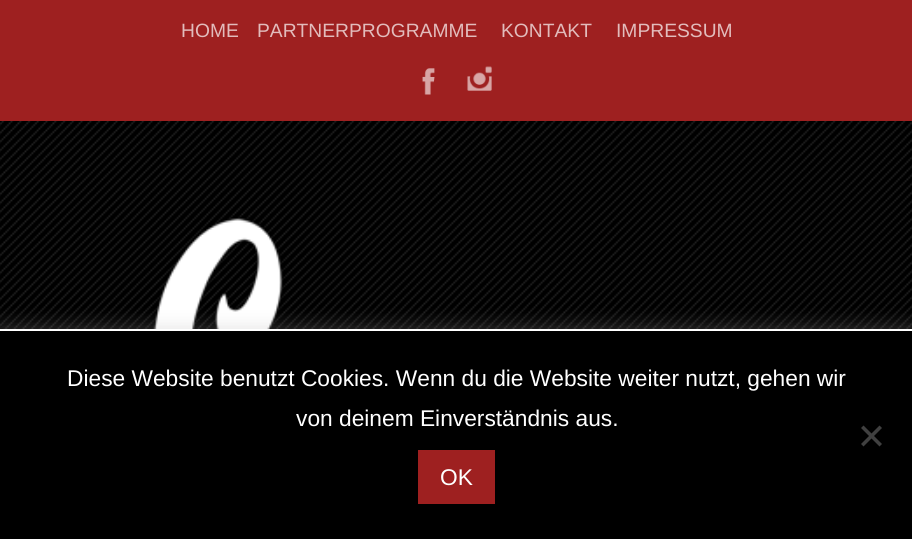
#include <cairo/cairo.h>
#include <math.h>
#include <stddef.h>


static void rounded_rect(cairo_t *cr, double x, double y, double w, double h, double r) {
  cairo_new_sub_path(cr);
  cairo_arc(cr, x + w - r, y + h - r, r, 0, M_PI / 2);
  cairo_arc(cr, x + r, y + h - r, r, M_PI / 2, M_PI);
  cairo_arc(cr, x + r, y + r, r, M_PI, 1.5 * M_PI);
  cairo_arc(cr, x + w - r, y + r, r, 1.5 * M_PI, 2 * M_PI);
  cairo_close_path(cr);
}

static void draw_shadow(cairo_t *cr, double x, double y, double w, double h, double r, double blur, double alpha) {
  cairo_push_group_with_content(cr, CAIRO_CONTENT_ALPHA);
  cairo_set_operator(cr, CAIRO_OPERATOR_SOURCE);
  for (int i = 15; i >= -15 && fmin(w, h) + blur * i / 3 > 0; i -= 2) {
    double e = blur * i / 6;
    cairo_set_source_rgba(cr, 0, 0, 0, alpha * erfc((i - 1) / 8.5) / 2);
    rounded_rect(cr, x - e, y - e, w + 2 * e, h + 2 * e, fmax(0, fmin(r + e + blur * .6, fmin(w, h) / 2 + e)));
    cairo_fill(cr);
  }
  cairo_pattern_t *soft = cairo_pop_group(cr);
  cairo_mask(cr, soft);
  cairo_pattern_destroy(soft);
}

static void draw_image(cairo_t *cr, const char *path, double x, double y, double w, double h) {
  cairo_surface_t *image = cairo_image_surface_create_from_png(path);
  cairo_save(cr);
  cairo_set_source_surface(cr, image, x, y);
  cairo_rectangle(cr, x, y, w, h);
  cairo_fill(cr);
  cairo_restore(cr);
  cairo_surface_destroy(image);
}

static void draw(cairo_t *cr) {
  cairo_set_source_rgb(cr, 0, 0, 0);
  cairo_paint(cr);
  draw_image(cr, "images/1.png", 0, 121, 912, 208);
  cairo_set_source_rgb(cr, 158 / 255.0, 32 / 255.0, 32 / 255.0);
  cairo_rectangle(cr, 0, 0, 912, 121);
  cairo_fill(cr);
  draw_image(cr, "images/2.png", 422, 68, 13, 27);
  draw_image(cr, "images/3.png", 467, 66, 25, 25);
  draw_image(cr, "images/4.png", 148, 215, 178, 114);
  cairo_set_source_rgb(cr, 172 / 255.0, 171 / 255.0, 171 / 255.0);
  draw_shadow(cr, 0, 327, 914, 210, 0, 9, 0.3);
  cairo_set_source_rgb(cr, 1, 1, 1);
  cairo_rectangle(cr, 0, 329, 912, 2);
  cairo_fill(cr);
  cairo_set_source_rgb(cr, 0, 0, 0);
  cairo_rectangle(cr, 0, 331, 912, 208);
  cairo_fill(cr);
  cairo_set_source_rgb(cr, 64 / 255.0, 64 / 255.0, 64 / 255.0);
  cairo_new_path(cr);
  cairo_move_to(cr, 879.5, 425.5);
  cairo_line_to(cr, 882, 428);
  cairo_line_to(cr, 863.5, 446.5);
  cairo_line_to(cr, 861, 444);
  cairo_close_path(cr);
  cairo_fill(cr);
  cairo_new_path(cr);
  cairo_move_to(cr, 861, 428);
  cairo_line_to(cr, 863.5, 425.5);
  cairo_line_to(cr, 882, 444);
  cairo_line_to(cr, 879.5, 446.5);
  cairo_close_path(cr);
  cairo_fill(cr);
  cairo_set_source_rgb(cr, 158 / 255.0, 32 / 255.0, 32 / 255.0);
  cairo_rectangle(cr, 418, 450, 77, 54);
  cairo_fill(cr);
  cairo_select_font_face(cr, "Liberation Sans", CAIRO_FONT_SLANT_NORMAL, CAIRO_FONT_WEIGHT_NORMAL);
  cairo_set_font_size(cr, 19.25);
  cairo_set_source_rgb(cr, 226 / 255.0, 188 / 255.0, 188 / 255.0);
  cairo_move_to(cr, 181, 37);
  cairo_show_text(cr, "HOME");
  cairo_move_to(cr, 257, 37);
  cairo_show_text(cr, "PARTNERPROGRAMME");
  cairo_move_to(cr, 501, 37);
  cairo_show_text(cr, "KONTAKT");
  cairo_move_to(cr, 616, 37);
  cairo_show_text(cr, "IMPRESSUM");
  cairo_set_font_size(cr, 22.75);
  cairo_set_source_rgb(cr, 1, 1, 1);
  cairo_move_to(cr, 67, 386);
  cairo_show_text(cr, "Diese Website benutzt Cookies. Wenn du die Website weiter nutzt, gehen wir");
  cairo_move_to(cr, 296, 426);
  cairo_show_text(cr, "von deinem Einverständnis aus.");
  cairo_move_to(cr, 440, 485);
  cairo_show_text(cr, "OK");
}

int main(void) {
  cairo_surface_t *surface = cairo_image_surface_create(CAIRO_FORMAT_RGB24, 912, 539);
  cairo_t *cr = cairo_create(surface);
  cairo_font_options_t *options = cairo_font_options_create();
  cairo_font_options_set_hint_metrics(options, CAIRO_HINT_METRICS_OFF);
  cairo_font_options_set_hint_style(options, CAIRO_HINT_STYLE_NONE);
  cairo_set_font_options(cr, options);
  cairo_set_miter_limit(cr, 4);
  draw(cr);
  cairo_surface_write_to_png(surface, "out.png");
  cairo_font_options_destroy(options);
  cairo_destroy(cr);
  cairo_surface_destroy(surface);
  return 0;
}
